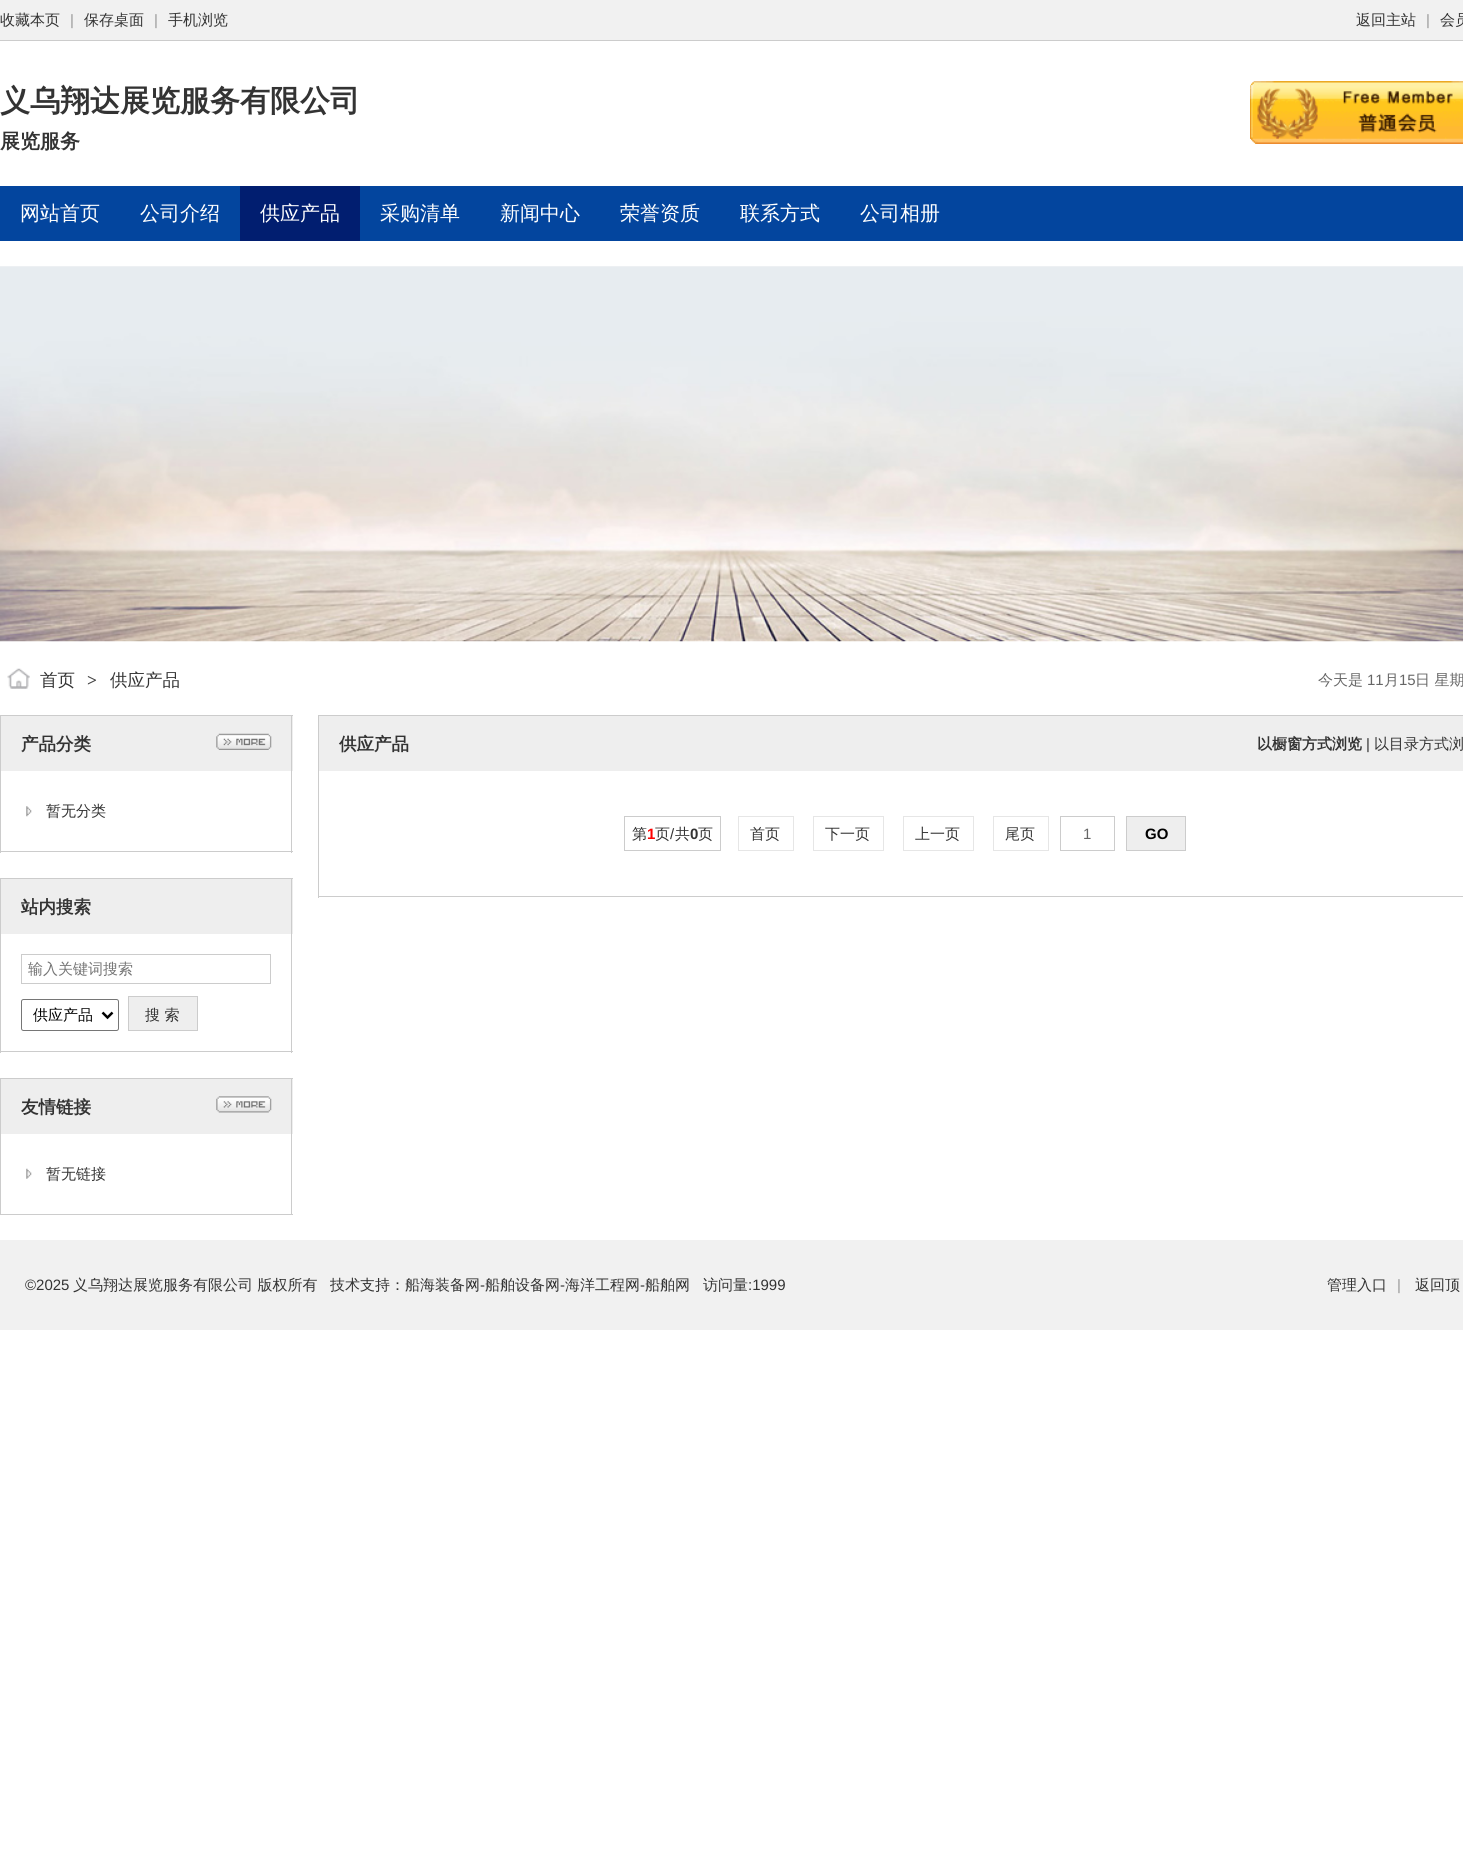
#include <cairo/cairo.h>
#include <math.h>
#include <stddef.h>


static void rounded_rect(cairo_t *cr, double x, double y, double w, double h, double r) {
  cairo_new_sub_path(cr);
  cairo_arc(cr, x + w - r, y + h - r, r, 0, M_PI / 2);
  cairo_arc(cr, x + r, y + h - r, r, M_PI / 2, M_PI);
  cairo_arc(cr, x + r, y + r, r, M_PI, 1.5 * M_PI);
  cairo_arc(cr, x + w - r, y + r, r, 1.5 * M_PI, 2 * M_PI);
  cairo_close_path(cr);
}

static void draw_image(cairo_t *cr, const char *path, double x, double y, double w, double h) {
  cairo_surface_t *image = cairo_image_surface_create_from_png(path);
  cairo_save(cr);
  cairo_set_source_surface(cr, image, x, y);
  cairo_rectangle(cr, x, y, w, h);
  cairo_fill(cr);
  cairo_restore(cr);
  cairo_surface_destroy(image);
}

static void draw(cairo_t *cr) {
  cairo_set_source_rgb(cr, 1, 1, 1);
  cairo_paint(cr);
  cairo_set_source_rgb(cr, 241 / 255.0, 241 / 255.0, 241 / 255.0);
  cairo_rectangle(cr, 0, 0, 1463, 40);
  cairo_fill(cr);
  cairo_set_source_rgb(cr, 204 / 255.0, 204 / 255.0, 204 / 255.0);
  cairo_rectangle(cr, 0, 40, 1463, 1);
  cairo_fill(cr);
  draw_image(cr, "images/1.png", 1250, 81, 213, 63);
  draw_image(cr, "images/2.png", 1250, 81, 213, 63);
  cairo_set_source_rgb(cr, 3 / 255.0, 69 / 255.0, 158 / 255.0);
  cairo_rectangle(cr, 0, 186, 1463, 55);
  cairo_fill(cr);
  cairo_set_source_rgb(cr, 1 / 255.0, 30 / 255.0, 112 / 255.0);
  cairo_rectangle(cr, 240, 186, 120, 55);
  cairo_fill(cr);
  draw_image(cr, "images/3.png", 0, 266, 1463, 376);
  draw_image(cr, "images/4.png", 7, 668, 23, 21);
  cairo_set_source_rgb(cr, 238 / 255.0, 238 / 255.0, 238 / 255.0);
  cairo_rectangle(cr, 1, 716, 292, 55);
  cairo_fill(cr);
  cairo_set_source_rgb(cr, 204 / 255.0, 204 / 255.0, 204 / 255.0);
  cairo_rectangle(cr, 0, 715, 293, 1);
  cairo_fill(cr);
  cairo_rectangle(cr, 291, 715, 1, 138);
  cairo_fill(cr);
  cairo_rectangle(cr, 0, 715, 1, 56);
  cairo_fill(cr);
  draw_image(cr, "images/5.png", 216, 733, 56, 17);
  cairo_rectangle(cr, 0, 851, 293, 1);
  cairo_fill(cr);
  cairo_rectangle(cr, 0, 771, 1, 82);
  cairo_fill(cr);
  draw_image(cr, "images/6.png", 26, 806, 6, 11);
  cairo_set_source_rgb(cr, 238 / 255.0, 238 / 255.0, 238 / 255.0);
  cairo_rectangle(cr, 1, 879, 292, 55);
  cairo_fill(cr);
  cairo_set_source_rgb(cr, 204 / 255.0, 204 / 255.0, 204 / 255.0);
  cairo_rectangle(cr, 0, 878, 293, 1);
  cairo_fill(cr);
  cairo_rectangle(cr, 291, 878, 1, 175);
  cairo_fill(cr);
  cairo_rectangle(cr, 0, 878, 1, 56);
  cairo_fill(cr);
  cairo_rectangle(cr, 0, 1051, 293, 1);
  cairo_fill(cr);
  cairo_rectangle(cr, 0, 934, 1, 119);
  cairo_fill(cr);
  cairo_rectangle(cr, 21.5, 954.5, 249, 29);
  cairo_set_line_width(cr, 1);
  cairo_stroke(cr);
  rounded_rect(cr, 21.5, 999.5, 97, 31, 2);
  cairo_set_source_rgb(cr, 118 / 255.0, 118 / 255.0, 118 / 255.0);
  cairo_stroke(cr);
  cairo_new_path(cr);
  cairo_move_to(cr, 102.5, 1012.5);
  cairo_line_to(cr, 107.5, 1017.5);
  cairo_line_to(cr, 112.5, 1012.5);
  cairo_set_source_rgb(cr, 0, 0, 0);
  cairo_set_line_width(cr, 2.5);
  cairo_stroke(cr);
  cairo_set_source_rgb(cr, 238 / 255.0, 238 / 255.0, 238 / 255.0);
  cairo_rectangle(cr, 128.5, 996.5, 69, 34);
  cairo_fill_preserve(cr);
  cairo_set_source_rgb(cr, 204 / 255.0, 204 / 255.0, 204 / 255.0);
  cairo_set_line_width(cr, 1);
  cairo_stroke(cr);
  cairo_set_source_rgb(cr, 238 / 255.0, 238 / 255.0, 238 / 255.0);
  cairo_rectangle(cr, 1, 1079, 292, 55);
  cairo_fill(cr);
  cairo_set_source_rgb(cr, 204 / 255.0, 204 / 255.0, 204 / 255.0);
  cairo_rectangle(cr, 0, 1078, 293, 1);
  cairo_fill(cr);
  cairo_rectangle(cr, 291, 1078, 1, 137);
  cairo_fill(cr);
  cairo_rectangle(cr, 0, 1078, 1, 56);
  cairo_fill(cr);
  draw_image(cr, "images/7.png", 216, 1096, 56, 17);
  cairo_rectangle(cr, 0, 1214, 293, 1);
  cairo_fill(cr);
  cairo_rectangle(cr, 0, 1134, 1, 81);
  cairo_fill(cr);
  draw_image(cr, "images/8.png", 26, 1168, 6, 11);
  cairo_set_source_rgb(cr, 238 / 255.0, 238 / 255.0, 238 / 255.0);
  cairo_rectangle(cr, 319, 716, 1144, 55);
  cairo_fill(cr);
  cairo_set_source_rgb(cr, 204 / 255.0, 204 / 255.0, 204 / 255.0);
  cairo_rectangle(cr, 318, 715, 1145, 1);
  cairo_fill(cr);
  cairo_rectangle(cr, 318, 715, 1, 56);
  cairo_fill(cr);
  cairo_rectangle(cr, 318, 896, 1145, 1);
  cairo_fill(cr);
  cairo_rectangle(cr, 318, 771, 1, 127);
  cairo_fill(cr);
  cairo_rectangle(cr, 624, 816, 97, 1);
  cairo_fill(cr);
  cairo_rectangle(cr, 624, 850, 74, 1);
  cairo_fill(cr);
  cairo_rectangle(cr, 624, 816, 1, 35);
  cairo_fill(cr);
  cairo_rectangle(cr, 720, 816, 1, 35);
  cairo_fill(cr);
  cairo_rectangle(cr, 698, 850, 23, 1);
  cairo_fill(cr);
  cairo_rectangle(cr, 738.5, 816.5, 55, 34);
  cairo_set_source_rgb(cr, 230 / 255.0, 230 / 255.0, 230 / 255.0);
  cairo_stroke(cr);
  cairo_rectangle(cr, 813.5, 816.5, 70, 34);
  cairo_stroke(cr);
  cairo_rectangle(cr, 903.5, 816.5, 70, 34);
  cairo_stroke(cr);
  cairo_rectangle(cr, 993.5, 816.5, 55, 34);
  cairo_stroke(cr);
  cairo_rectangle(cr, 1060.5, 816.5, 54, 34);
  cairo_set_source_rgb(cr, 204 / 255.0, 204 / 255.0, 204 / 255.0);
  cairo_stroke(cr);
  cairo_set_source_rgb(cr, 238 / 255.0, 238 / 255.0, 238 / 255.0);
  cairo_rectangle(cr, 1126.5, 816.5, 59, 34);
  cairo_fill_preserve(cr);
  cairo_set_source_rgb(cr, 204 / 255.0, 204 / 255.0, 204 / 255.0);
  cairo_stroke(cr);
  cairo_set_source_rgb(cr, 241 / 255.0, 241 / 255.0, 241 / 255.0);
  cairo_rectangle(cr, 0, 1240, 1463, 90);
  cairo_fill(cr);
  cairo_select_font_face(cr, "WenQuanYi Zen Hei Medium", CAIRO_FONT_SLANT_NORMAL, CAIRO_FONT_WEIGHT_NORMAL);
  cairo_set_font_size(cr, 15);
  cairo_set_source_rgb(cr, 51 / 255.0, 51 / 255.0, 51 / 255.0);
  cairo_move_to(cr, 0, 25);
  cairo_show_text(cr, "收藏本页");
  cairo_select_font_face(cr, "Liberation Sans", CAIRO_FONT_SLANT_NORMAL, CAIRO_FONT_WEIGHT_NORMAL);
  cairo_set_source_rgb(cr, 153 / 255.0, 153 / 255.0, 153 / 255.0);
  cairo_move_to(cr, 70, 25);
  cairo_show_text(cr, "|");
  cairo_select_font_face(cr, "WenQuanYi Zen Hei Medium", CAIRO_FONT_SLANT_NORMAL, CAIRO_FONT_WEIGHT_NORMAL);
  cairo_set_source_rgb(cr, 51 / 255.0, 51 / 255.0, 51 / 255.0);
  cairo_move_to(cr, 84, 25);
  cairo_show_text(cr, "保存桌面");
  cairo_select_font_face(cr, "Liberation Sans", CAIRO_FONT_SLANT_NORMAL, CAIRO_FONT_WEIGHT_NORMAL);
  cairo_set_source_rgb(cr, 153 / 255.0, 153 / 255.0, 153 / 255.0);
  cairo_move_to(cr, 154, 25);
  cairo_show_text(cr, "|");
  cairo_select_font_face(cr, "WenQuanYi Zen Hei Medium", CAIRO_FONT_SLANT_NORMAL, CAIRO_FONT_WEIGHT_NORMAL);
  cairo_set_source_rgb(cr, 51 / 255.0, 51 / 255.0, 51 / 255.0);
  cairo_move_to(cr, 168, 25);
  cairo_show_text(cr, "手机浏览");
  cairo_move_to(cr, 1356, 25);
  cairo_show_text(cr, "返回主站");
  cairo_select_font_face(cr, "Liberation Sans", CAIRO_FONT_SLANT_NORMAL, CAIRO_FONT_WEIGHT_NORMAL);
  cairo_set_source_rgb(cr, 153 / 255.0, 153 / 255.0, 153 / 255.0);
  cairo_move_to(cr, 1426, 25);
  cairo_show_text(cr, "|");
  cairo_select_font_face(cr, "WenQuanYi Zen Hei Medium", CAIRO_FONT_SLANT_NORMAL, CAIRO_FONT_WEIGHT_NORMAL);
  cairo_set_source_rgb(cr, 51 / 255.0, 51 / 255.0, 51 / 255.0);
  cairo_move_to(cr, 1440, 25);
  cairo_show_text(cr, "会员");
  cairo_select_font_face(cr, "WenQuanYi Zen Hei", CAIRO_FONT_SLANT_NORMAL, CAIRO_FONT_WEIGHT_BOLD);
  cairo_set_font_size(cr, 30);
  cairo_move_to(cr, 0, 111);
  cairo_show_text(cr, "义乌翔达展览服务有限公司");
  cairo_set_font_size(cr, 20);
  cairo_move_to(cr, 0, 148);
  cairo_show_text(cr, "展览服务");
  cairo_select_font_face(cr, "WenQuanYi Zen Hei Medium", CAIRO_FONT_SLANT_NORMAL, CAIRO_FONT_WEIGHT_NORMAL);
  cairo_set_source_rgb(cr, 1, 1, 1);
  cairo_move_to(cr, 20, 220);
  cairo_show_text(cr, "网站首页");
  cairo_move_to(cr, 140, 220);
  cairo_show_text(cr, "公司介绍");
  cairo_move_to(cr, 260, 220);
  cairo_show_text(cr, "供应产品");
  cairo_move_to(cr, 380, 220);
  cairo_show_text(cr, "采购清单");
  cairo_move_to(cr, 500, 220);
  cairo_show_text(cr, "新闻中心");
  cairo_move_to(cr, 620, 220);
  cairo_show_text(cr, "荣誉资质");
  cairo_move_to(cr, 740, 220);
  cairo_show_text(cr, "联系方式");
  cairo_move_to(cr, 860, 220);
  cairo_show_text(cr, "公司相册");
  cairo_set_font_size(cr, 17.5);
  cairo_set_source_rgb(cr, 51 / 255.0, 51 / 255.0, 51 / 255.0);
  cairo_move_to(cr, 40, 686);
  cairo_show_text(cr, "首页");
  cairo_select_font_face(cr, "Liberation Serif", CAIRO_FONT_SLANT_NORMAL, CAIRO_FONT_WEIGHT_BOLD);
  cairo_set_source_rgb(cr, 68 / 255.0, 68 / 255.0, 68 / 255.0);
  cairo_move_to(cr, 87, 686);
  cairo_show_text(cr, ">");
  cairo_select_font_face(cr, "WenQuanYi Zen Hei Medium", CAIRO_FONT_SLANT_NORMAL, CAIRO_FONT_WEIGHT_NORMAL);
  cairo_set_source_rgb(cr, 51 / 255.0, 51 / 255.0, 51 / 255.0);
  cairo_move_to(cr, 110, 686);
  cairo_show_text(cr, "供应产品");
  cairo_set_font_size(cr, 15);
  cairo_set_source_rgb(cr, 102 / 255.0, 102 / 255.0, 102 / 255.0);
  cairo_move_to(cr, 1318, 685);
  cairo_show_text(cr, "今天是");
  cairo_select_font_face(cr, "Liberation Sans", CAIRO_FONT_SLANT_NORMAL, CAIRO_FONT_WEIGHT_NORMAL);
  cairo_move_to(cr, 1367, 685);
  cairo_show_text(cr, "11");
  cairo_select_font_face(cr, "WenQuanYi Zen Hei Medium", CAIRO_FONT_SLANT_NORMAL, CAIRO_FONT_WEIGHT_NORMAL);
  cairo_move_to(cr, 1384, 685);
  cairo_show_text(cr, "月");
  cairo_select_font_face(cr, "Liberation Sans", CAIRO_FONT_SLANT_NORMAL, CAIRO_FONT_WEIGHT_NORMAL);
  cairo_move_to(cr, 1399, 685);
  cairo_show_text(cr, "15");
  cairo_select_font_face(cr, "WenQuanYi Zen Hei Medium", CAIRO_FONT_SLANT_NORMAL, CAIRO_FONT_WEIGHT_NORMAL);
  cairo_move_to(cr, 1415, 685);
  cairo_show_text(cr, "日 星期");
  cairo_select_font_face(cr, "WenQuanYi Zen Hei", CAIRO_FONT_SLANT_NORMAL, CAIRO_FONT_WEIGHT_BOLD);
  cairo_set_font_size(cr, 17.5);
  cairo_set_source_rgb(cr, 51 / 255.0, 51 / 255.0, 51 / 255.0);
  cairo_move_to(cr, 21, 750);
  cairo_show_text(cr, "产品分类");
  cairo_select_font_face(cr, "WenQuanYi Zen Hei Medium", CAIRO_FONT_SLANT_NORMAL, CAIRO_FONT_WEIGHT_NORMAL);
  cairo_set_font_size(cr, 15);
  cairo_move_to(cr, 46, 816);
  cairo_show_text(cr, "暂无分类");
  cairo_select_font_face(cr, "WenQuanYi Zen Hei", CAIRO_FONT_SLANT_NORMAL, CAIRO_FONT_WEIGHT_BOLD);
  cairo_set_font_size(cr, 17.5);
  cairo_move_to(cr, 21, 913);
  cairo_show_text(cr, "站内搜索");
  cairo_save(cr);
  cairo_rectangle(cr, 28, 959, 237, 21);
  cairo_clip(cr);
  cairo_select_font_face(cr, "WenQuanYi Zen Hei Medium", CAIRO_FONT_SLANT_NORMAL, CAIRO_FONT_WEIGHT_NORMAL);
  cairo_set_font_size(cr, 15);
  cairo_set_source_rgb(cr, 117 / 255.0, 117 / 255.0, 117 / 255.0);
  cairo_move_to(cr, 28, 974);
  cairo_show_text(cr, "输入关键词搜索");
  cairo_restore(cr);
  cairo_select_font_face(cr, "WenQuanYi Zen Hei Medium", CAIRO_FONT_SLANT_NORMAL, CAIRO_FONT_WEIGHT_NORMAL);
  cairo_set_font_size(cr, 15);
  cairo_set_source_rgb(cr, 0, 0, 0);
  cairo_move_to(cr, 33, 1020);
  cairo_show_text(cr, "供应产品");
  cairo_set_source_rgb(cr, 51 / 255.0, 51 / 255.0, 51 / 255.0);
  cairo_move_to(cr, 145, 1020);
  cairo_show_text(cr, "搜 索");
  cairo_select_font_face(cr, "WenQuanYi Zen Hei", CAIRO_FONT_SLANT_NORMAL, CAIRO_FONT_WEIGHT_BOLD);
  cairo_set_font_size(cr, 17.5);
  cairo_move_to(cr, 21, 1113);
  cairo_show_text(cr, "友情链接");
  cairo_select_font_face(cr, "WenQuanYi Zen Hei Medium", CAIRO_FONT_SLANT_NORMAL, CAIRO_FONT_WEIGHT_NORMAL);
  cairo_set_font_size(cr, 15);
  cairo_move_to(cr, 46, 1179);
  cairo_show_text(cr, "暂无链接");
  cairo_select_font_face(cr, "WenQuanYi Zen Hei", CAIRO_FONT_SLANT_NORMAL, CAIRO_FONT_WEIGHT_BOLD);
  cairo_set_font_size(cr, 17.5);
  cairo_move_to(cr, 339, 750);
  cairo_show_text(cr, "供应产品");
  cairo_set_font_size(cr, 15);
  cairo_move_to(cr, 1257, 749);
  cairo_show_text(cr, "以橱窗方式浏览");
  cairo_select_font_face(cr, "Liberation Sans", CAIRO_FONT_SLANT_NORMAL, CAIRO_FONT_WEIGHT_NORMAL);
  cairo_move_to(cr, 1366, 749);
  cairo_show_text(cr, "|");
  cairo_select_font_face(cr, "WenQuanYi Zen Hei Medium", CAIRO_FONT_SLANT_NORMAL, CAIRO_FONT_WEIGHT_NORMAL);
  cairo_move_to(cr, 1374, 749);
  cairo_show_text(cr, "以目录方式浏");
  cairo_move_to(cr, 632, 839);
  cairo_show_text(cr, "第");
  cairo_select_font_face(cr, "Liberation Sans", CAIRO_FONT_SLANT_NORMAL, CAIRO_FONT_WEIGHT_BOLD);
  cairo_set_source_rgb(cr, 1, 0, 0);
  cairo_move_to(cr, 647, 839);
  cairo_show_text(cr, "1");
  cairo_select_font_face(cr, "WenQuanYi Zen Hei Medium", CAIRO_FONT_SLANT_NORMAL, CAIRO_FONT_WEIGHT_NORMAL);
  cairo_set_source_rgb(cr, 51 / 255.0, 51 / 255.0, 51 / 255.0);
  cairo_move_to(cr, 655, 839);
  cairo_show_text(cr, "页");
  cairo_select_font_face(cr, "Liberation Sans", CAIRO_FONT_SLANT_NORMAL, CAIRO_FONT_WEIGHT_NORMAL);
  cairo_move_to(cr, 670, 839);
  cairo_show_text(cr, "/");
  cairo_select_font_face(cr, "WenQuanYi Zen Hei Medium", CAIRO_FONT_SLANT_NORMAL, CAIRO_FONT_WEIGHT_NORMAL);
  cairo_move_to(cr, 675, 839);
  cairo_show_text(cr, "共");
  cairo_select_font_face(cr, "Liberation Sans", CAIRO_FONT_SLANT_NORMAL, CAIRO_FONT_WEIGHT_BOLD);
  cairo_move_to(cr, 690, 839);
  cairo_show_text(cr, "0");
  cairo_select_font_face(cr, "WenQuanYi Zen Hei Medium", CAIRO_FONT_SLANT_NORMAL, CAIRO_FONT_WEIGHT_NORMAL);
  cairo_move_to(cr, 698, 839);
  cairo_show_text(cr, "页");
  cairo_move_to(cr, 750, 839);
  cairo_show_text(cr, "首页");
  cairo_move_to(cr, 825, 839);
  cairo_show_text(cr, "下一页");
  cairo_move_to(cr, 915, 839);
  cairo_show_text(cr, "上一页");
  cairo_move_to(cr, 1005, 839);
  cairo_show_text(cr, "尾页");
  cairo_select_font_face(cr, "Liberation Sans", CAIRO_FONT_SLANT_NORMAL, CAIRO_FONT_WEIGHT_NORMAL);
  cairo_set_source_rgb(cr, 102 / 255.0, 102 / 255.0, 102 / 255.0);
  cairo_move_to(cr, 1083, 839);
  cairo_show_text(cr, "1");
  cairo_select_font_face(cr, "Liberation Sans", CAIRO_FONT_SLANT_NORMAL, CAIRO_FONT_WEIGHT_BOLD);
  cairo_set_source_rgb(cr, 0, 0, 0);
  cairo_move_to(cr, 1145, 839);
  cairo_show_text(cr, "GO");
  cairo_select_font_face(cr, "Liberation Sans", CAIRO_FONT_SLANT_NORMAL, CAIRO_FONT_WEIGHT_NORMAL);
  cairo_set_source_rgb(cr, 51 / 255.0, 51 / 255.0, 51 / 255.0);
  cairo_move_to(cr, 25, 1290);
  cairo_show_text(cr, "©2025");
  cairo_select_font_face(cr, "WenQuanYi Zen Hei Medium", CAIRO_FONT_SLANT_NORMAL, CAIRO_FONT_WEIGHT_NORMAL);
  cairo_move_to(cr, 73, 1290);
  cairo_show_text(cr, "义乌翔达展览服务有限公司 版权所有");
  cairo_move_to(cr, 330, 1290);
  cairo_show_text(cr, "技术支持：");
  cairo_move_to(cr, 405, 1290);
  cairo_show_text(cr, "船海装备网");
  cairo_select_font_face(cr, "Liberation Sans", CAIRO_FONT_SLANT_NORMAL, CAIRO_FONT_WEIGHT_NORMAL);
  cairo_move_to(cr, 480, 1290);
  cairo_show_text(cr, "-");
  cairo_select_font_face(cr, "WenQuanYi Zen Hei Medium", CAIRO_FONT_SLANT_NORMAL, CAIRO_FONT_WEIGHT_NORMAL);
  cairo_move_to(cr, 485, 1290);
  cairo_show_text(cr, "船舶设备网");
  cairo_select_font_face(cr, "Liberation Sans", CAIRO_FONT_SLANT_NORMAL, CAIRO_FONT_WEIGHT_NORMAL);
  cairo_move_to(cr, 560, 1290);
  cairo_show_text(cr, "-");
  cairo_select_font_face(cr, "WenQuanYi Zen Hei Medium", CAIRO_FONT_SLANT_NORMAL, CAIRO_FONT_WEIGHT_NORMAL);
  cairo_move_to(cr, 565, 1290);
  cairo_show_text(cr, "海洋工程网");
  cairo_select_font_face(cr, "Liberation Sans", CAIRO_FONT_SLANT_NORMAL, CAIRO_FONT_WEIGHT_NORMAL);
  cairo_move_to(cr, 640, 1290);
  cairo_show_text(cr, "-");
  cairo_select_font_face(cr, "WenQuanYi Zen Hei Medium", CAIRO_FONT_SLANT_NORMAL, CAIRO_FONT_WEIGHT_NORMAL);
  cairo_move_to(cr, 645, 1290);
  cairo_show_text(cr, "船舶网");
  cairo_move_to(cr, 703, 1290);
  cairo_show_text(cr, "访问量");
  cairo_select_font_face(cr, "Liberation Sans", CAIRO_FONT_SLANT_NORMAL, CAIRO_FONT_WEIGHT_NORMAL);
  cairo_move_to(cr, 748, 1290);
  cairo_show_text(cr, ":1999");
  cairo_select_font_face(cr, "WenQuanYi Zen Hei Medium", CAIRO_FONT_SLANT_NORMAL, CAIRO_FONT_WEIGHT_NORMAL);
  cairo_move_to(cr, 1327, 1290);
  cairo_show_text(cr, "管理入口");
  cairo_select_font_face(cr, "Liberation Sans", CAIRO_FONT_SLANT_NORMAL, CAIRO_FONT_WEIGHT_NORMAL);
  cairo_set_source_rgb(cr, 153 / 255.0, 153 / 255.0, 153 / 255.0);
  cairo_move_to(cr, 1397, 1290);
  cairo_show_text(cr, "|");
  cairo_select_font_face(cr, "WenQuanYi Zen Hei Medium", CAIRO_FONT_SLANT_NORMAL, CAIRO_FONT_WEIGHT_NORMAL);
  cairo_set_source_rgb(cr, 51 / 255.0, 51 / 255.0, 51 / 255.0);
  cairo_move_to(cr, 1415, 1290);
  cairo_show_text(cr, "返回顶");
}

int main(void) {
  cairo_surface_t *surface = cairo_image_surface_create(CAIRO_FORMAT_RGB24, 1463, 1852);
  cairo_t *cr = cairo_create(surface);
  cairo_font_options_t *options = cairo_font_options_create();
  cairo_font_options_set_hint_metrics(options, CAIRO_HINT_METRICS_OFF);
  cairo_font_options_set_hint_style(options, CAIRO_HINT_STYLE_NONE);
  cairo_set_font_options(cr, options);
  cairo_set_miter_limit(cr, 4);
  draw(cr);
  cairo_surface_write_to_png(surface, "out.png");
  cairo_font_options_destroy(options);
  cairo_destroy(cr);
  cairo_surface_destroy(surface);
  return 0;
}
